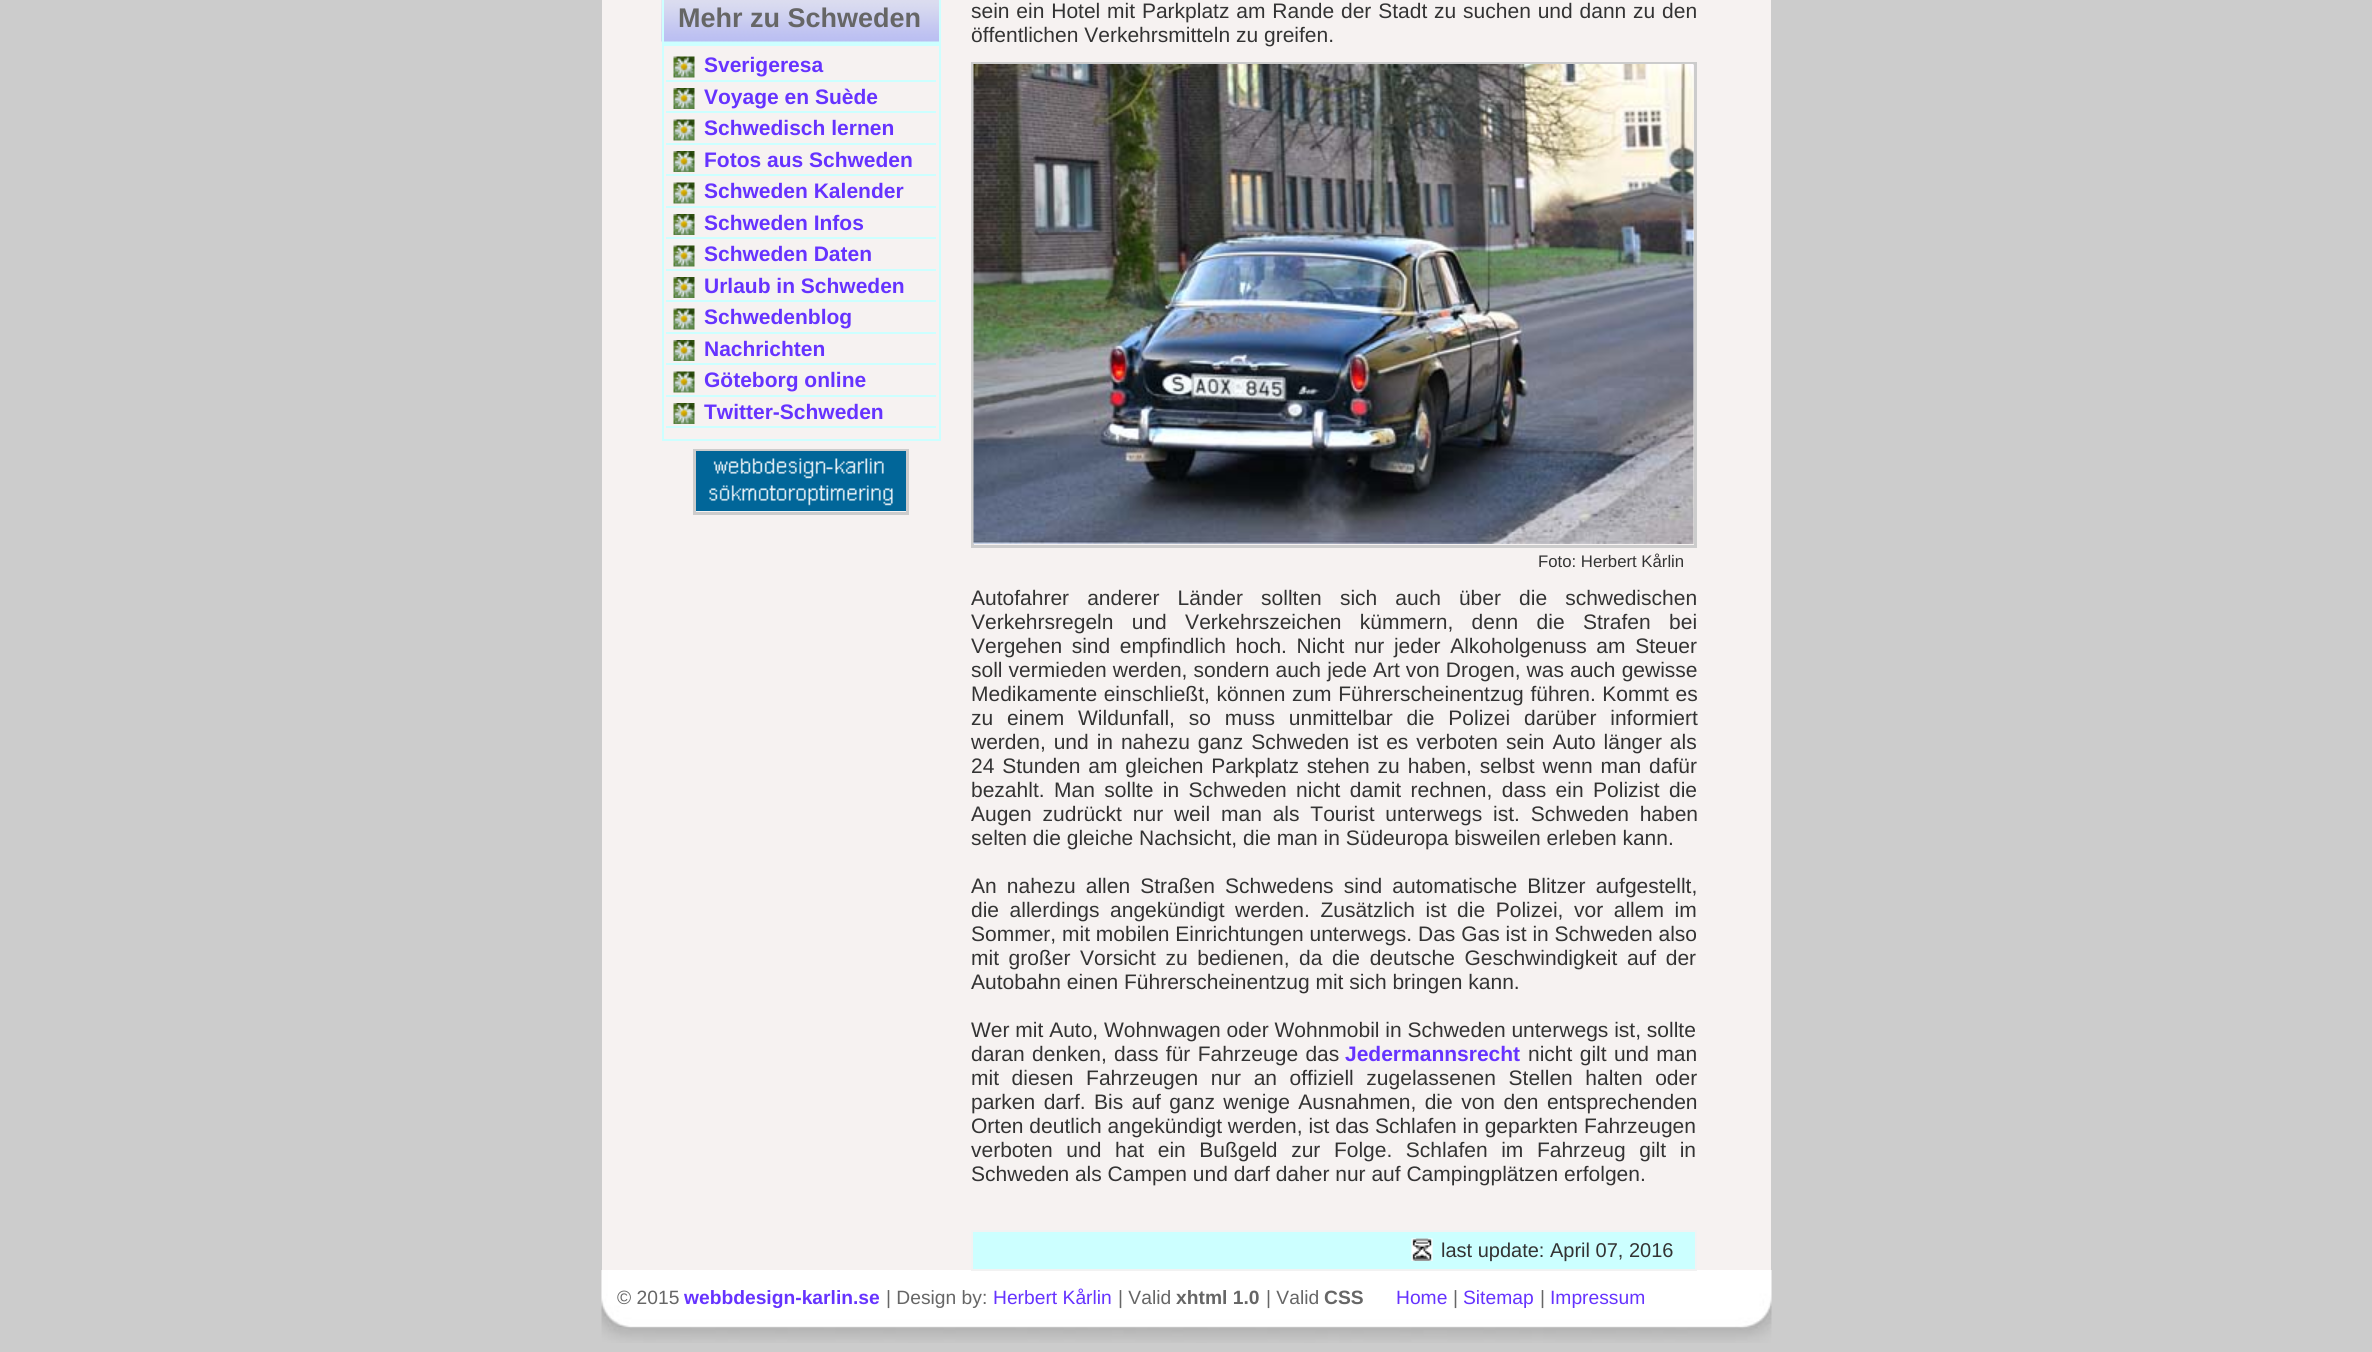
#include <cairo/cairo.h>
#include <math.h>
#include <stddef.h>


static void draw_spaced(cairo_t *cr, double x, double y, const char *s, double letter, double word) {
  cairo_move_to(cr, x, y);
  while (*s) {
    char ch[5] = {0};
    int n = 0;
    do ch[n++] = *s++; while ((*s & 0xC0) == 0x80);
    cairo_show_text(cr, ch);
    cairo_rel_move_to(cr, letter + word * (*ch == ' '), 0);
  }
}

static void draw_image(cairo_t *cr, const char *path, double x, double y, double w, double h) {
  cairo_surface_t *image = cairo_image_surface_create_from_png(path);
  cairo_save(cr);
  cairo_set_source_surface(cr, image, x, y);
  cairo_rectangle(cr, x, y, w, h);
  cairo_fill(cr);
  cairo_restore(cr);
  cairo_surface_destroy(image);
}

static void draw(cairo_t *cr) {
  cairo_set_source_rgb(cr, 204 / 255.0, 204 / 255.0, 204 / 255.0);
  cairo_paint(cr);
  cairo_set_source_rgb(cr, 246 / 255.0, 242 / 255.0, 241 / 255.0);
  cairo_rectangle(cr, 602, 0, 1169, 1270);
  cairo_fill(cr);
  cairo_set_source_rgb(cr, 204 / 255.0, 1, 1);
  cairo_rectangle(cr, 664, 41, 275, 1);
  cairo_fill(cr);
  draw_image(cr, "images/1.png", 661, 0, 278, 42);
  cairo_rectangle(cr, 663, -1, 277, 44);
  cairo_stroke(cr);
  cairo_rectangle(cr, 663, 45, 277, 395);
  cairo_stroke(cr);
  draw_image(cr, "images/2.png", 673, 56, 22, 22);
  cairo_rectangle(cr, 666, 80, 270, 2);
  cairo_fill(cr);
  draw_image(cr, "images/3.png", 673, 88, 22, 21);
  cairo_rectangle(cr, 666, 111, 270, 2);
  cairo_fill(cr);
  draw_image(cr, "images/2.png", 673, 119, 22, 22);
  cairo_rectangle(cr, 666, 143, 270, 2);
  cairo_fill(cr);
  draw_image(cr, "images/3.png", 673, 151, 22, 21);
  cairo_rectangle(cr, 666, 174, 270, 2);
  cairo_fill(cr);
  draw_image(cr, "images/2.png", 673, 182, 22, 22);
  cairo_rectangle(cr, 666, 206, 270, 2);
  cairo_fill(cr);
  draw_image(cr, "images/3.png", 673, 214, 22, 21);
  cairo_rectangle(cr, 666, 237, 270, 2);
  cairo_fill(cr);
  draw_image(cr, "images/2.png", 673, 245, 22, 22);
  cairo_rectangle(cr, 666, 269, 270, 2);
  cairo_fill(cr);
  draw_image(cr, "images/3.png", 673, 277, 22, 21);
  cairo_rectangle(cr, 666, 300, 270, 2);
  cairo_fill(cr);
  draw_image(cr, "images/2.png", 673, 308, 22, 22);
  cairo_rectangle(cr, 666, 332, 270, 2);
  cairo_fill(cr);
  draw_image(cr, "images/3.png", 673, 340, 22, 21);
  cairo_rectangle(cr, 666, 363, 270, 2);
  cairo_fill(cr);
  draw_image(cr, "images/2.png", 673, 371, 22, 22);
  cairo_rectangle(cr, 666, 395, 270, 2);
  cairo_fill(cr);
  draw_image(cr, "images/3.png", 673, 403, 22, 21);
  cairo_rectangle(cr, 666, 426, 270, 2);
  cairo_fill(cr);
  cairo_rectangle(cr, 694.5, 450.5, 213, 63);
  cairo_set_source_rgb(cr, 204 / 255.0, 204 / 255.0, 204 / 255.0);
  cairo_set_line_width(cr, 3);
  cairo_stroke(cr);
  draw_image(cr, "images/4.png", 696, 451, 210, 60);
  cairo_rectangle(cr, 972.5, 63.5, 723, 483);
  cairo_stroke(cr);
  draw_image(cr, "images/5.png", 973, 64, 721, 480);
  draw_image(cr, "images/7.png", 601, 1270, 1171, 73);
  cairo_set_source_rgb(cr, 204 / 255.0, 1, 1);
  cairo_rectangle(cr, 972, 1231, 724, 39);
  cairo_fill_preserve(cr);
  cairo_set_source_rgb(cr, 242 / 255.0, 242 / 255.0, 242 / 255.0);
  cairo_set_line_width(cr, 2);
  cairo_stroke(cr);
  draw_image(cr, "images/6.png", 1411, 1238, 22, 23);
  cairo_select_font_face(cr, "Liberation Sans", CAIRO_FONT_SLANT_NORMAL, CAIRO_FONT_WEIGHT_BOLD);
  cairo_set_font_size(cr, 27);
  cairo_set_source_rgb(cr, 102 / 255.0, 102 / 255.0, 102 / 255.0);
  cairo_move_to(cr, 678, 27);
  cairo_show_text(cr, "Mehr zu Schweden");
  cairo_set_font_size(cr, 21);
  cairo_set_source_rgb(cr, 102 / 255.0, 51 / 255.0, 1);
  cairo_move_to(cr, 704, 72);
  cairo_show_text(cr, "Sverigeresa");
  cairo_move_to(cr, 704, 104);
  cairo_show_text(cr, "Voyage en Suède");
  cairo_move_to(cr, 704, 135);
  cairo_show_text(cr, "Schwedisch lernen");
  cairo_move_to(cr, 704, 167);
  cairo_show_text(cr, "Fotos aus Schweden");
  cairo_move_to(cr, 704, 198);
  cairo_show_text(cr, "Schweden Kalender");
  cairo_move_to(cr, 704, 230);
  cairo_show_text(cr, "Schweden Infos");
  cairo_move_to(cr, 704, 261);
  cairo_show_text(cr, "Schweden Daten");
  cairo_move_to(cr, 704, 293);
  cairo_show_text(cr, "Urlaub in Schweden");
  cairo_move_to(cr, 704, 324);
  cairo_show_text(cr, "Schwedenblog");
  cairo_move_to(cr, 704, 356);
  cairo_show_text(cr, "Nachrichten");
  cairo_move_to(cr, 704, 387);
  cairo_show_text(cr, "Göteborg online");
  cairo_move_to(cr, 704, 419);
  cairo_show_text(cr, "Twitter-Schweden");
  cairo_select_font_face(cr, "Liberation Sans", CAIRO_FONT_SLANT_NORMAL, CAIRO_FONT_WEIGHT_NORMAL);
  cairo_set_source_rgb(cr, 51 / 255.0, 51 / 255.0, 51 / 255.0);
  draw_spaced(cr, 971, 18, "sein ein Hotel mit Parkplatz am Rande der Stadt zu suchen und dann zu den", 0, 1);
  cairo_move_to(cr, 971, 42);
  cairo_show_text(cr, "öffentlichen Verkehrsmitteln zu greifen.");
  cairo_set_font_size(cr, 16.75);
  cairo_move_to(cr, 1538, 567);
  cairo_show_text(cr, "Foto: Herbert Kårlin");
  cairo_set_font_size(cr, 21);
  draw_spaced(cr, 971, 605, "Autofahrer anderer Länder sollten sich auch über die schwedischen", 0, 12.25);
  draw_spaced(cr, 971, 629, "Verkehrsregeln und Verkehrszeichen kümmern, denn die Strafen bei", 0, 12.5);
  draw_spaced(cr, 971, 653, "Vergehen sind empfindlich hoch. Nicht nur jeder Alkoholgenuss am Steuer", 0, 3.75);
  draw_spaced(cr, 971, 677, "soll vermieden werden, sondern auch jede Art von Drogen, was auch gewisse", 0, 0.25);
  draw_spaced(cr, 971, 701, "Medikamente einschließt, können zum Führerscheinentzug führen. Kommt es", 0, 0.75);
  draw_spaced(cr, 971, 725, "zu einem Wildunfall, so muss unmittelbar die Polizei darüber informiert", 0, 8);
  draw_spaced(cr, 971, 749, "werden, und in nahezu ganz Schweden ist es verboten sein Auto länger als", 0, 2.1);
  draw_spaced(cr, 971, 773, "24 Stunden am gleichen Parkplatz stehen zu haben, selbst wenn man dafür", 0, 2);
  draw_spaced(cr, 971, 797, "bezahlt. Man sollte in Schweden nicht damit rechnen, dass ein Polizist die", 0, 3.6);
  draw_spaced(cr, 971, 821, "Augen zudrückt nur weil man als Tourist unterwegs ist. Schweden haben", 0, 5);
  cairo_move_to(cr, 971, 845);
  cairo_show_text(cr, "selten die gleiche Nachsicht, die man in Südeuropa bisweilen erleben kann.");
  draw_spaced(cr, 971, 893, "An nahezu allen Straßen Schwedens sind automatische Blitzer aufgestellt,", 0, 4.25);
  draw_spaced(cr, 971, 917, "die allerdings angekündigt werden. Zusätzlich ist die Polizei, vor allem im", 0, 4.75);
  cairo_move_to(cr, 971, 941);
  cairo_show_text(cr, "Sommer, mit mobilen Einrichtungen unterwegs. Das Gas ist in Schweden also");
  draw_spaced(cr, 971, 965, "mit großer Vorsicht zu bedienen, da die deutsche Geschwindigkeit auf der", 0, 3.75);
  cairo_move_to(cr, 971, 989);
  cairo_show_text(cr, "Autobahn einen Führerscheinentzug mit sich bringen kann.");
  cairo_move_to(cr, 971, 1037);
  cairo_show_text(cr, "Wer mit Auto, Wohnwagen oder Wohnmobil in Schweden unterwegs ist, sollte");
  draw_spaced(cr, 971, 1061, "daran denken, dass für Fahrzeuge das", 0, 1.5);
  cairo_select_font_face(cr, "Liberation Sans", CAIRO_FONT_SLANT_NORMAL, CAIRO_FONT_WEIGHT_BOLD);
  cairo_set_source_rgb(cr, 102 / 255.0, 51 / 255.0, 1);
  cairo_move_to(cr, 1345, 1061);
  cairo_show_text(cr, "Jedermannsrecht");
  cairo_select_font_face(cr, "Liberation Sans", CAIRO_FONT_SLANT_NORMAL, CAIRO_FONT_WEIGHT_NORMAL);
  cairo_set_source_rgb(cr, 51 / 255.0, 51 / 255.0, 51 / 255.0);
  draw_spaced(cr, 1528, 1061, "nicht gilt und man", 0, 1.5);
  draw_spaced(cr, 971, 1085, "mit diesen Fahrzeugen nur an offiziell zugelassenen Stellen halten oder", 0, 6.75);
  draw_spaced(cr, 971, 1109, "parken darf. Bis auf ganz wenige Ausnahmen, die von den entsprechenden", 0, 2.6);
  cairo_move_to(cr, 971, 1133);
  cairo_show_text(cr, "Orten deutlich angekündigt werden, ist das Schlafen in geparkten Fahrzeugen");
  draw_spaced(cr, 971, 1157, "verboten und hat ein Bußgeld zur Folge. Schlafen im Fahrzeug gilt in", 0, 7.75);
  cairo_move_to(cr, 971, 1181);
  cairo_show_text(cr, "Schweden als Campen und darf daher nur auf Campingplätzen erfolgen.");
  cairo_set_font_size(cr, 20);
  cairo_move_to(cr, 1441, 1257);
  cairo_show_text(cr, "last update: April 07, 2016");
  cairo_set_font_size(cr, 19.25);
  cairo_set_source_rgb(cr, 102 / 255.0, 102 / 255.0, 102 / 255.0);
  cairo_move_to(cr, 617, 1304);
  cairo_show_text(cr, "© 2015");
  cairo_select_font_face(cr, "Liberation Sans", CAIRO_FONT_SLANT_NORMAL, CAIRO_FONT_WEIGHT_BOLD);
  cairo_set_source_rgb(cr, 102 / 255.0, 51 / 255.0, 1);
  cairo_move_to(cr, 684, 1304);
  cairo_show_text(cr, "webbdesign-karlin.se");
  cairo_select_font_face(cr, "Liberation Sans", CAIRO_FONT_SLANT_NORMAL, CAIRO_FONT_WEIGHT_NORMAL);
  cairo_set_source_rgb(cr, 102 / 255.0, 102 / 255.0, 102 / 255.0);
  cairo_move_to(cr, 886, 1304);
  cairo_show_text(cr, "| Design by:");
  cairo_set_source_rgb(cr, 102 / 255.0, 51 / 255.0, 1);
  cairo_move_to(cr, 993, 1304);
  cairo_show_text(cr, "Herbert Kårlin");
  cairo_set_source_rgb(cr, 102 / 255.0, 102 / 255.0, 102 / 255.0);
  cairo_move_to(cr, 1118, 1304);
  cairo_show_text(cr, "| Valid");
  cairo_select_font_face(cr, "Liberation Sans", CAIRO_FONT_SLANT_NORMAL, CAIRO_FONT_WEIGHT_BOLD);
  cairo_move_to(cr, 1176, 1304);
  cairo_show_text(cr, "xhtml 1.0");
  cairo_select_font_face(cr, "Liberation Sans", CAIRO_FONT_SLANT_NORMAL, CAIRO_FONT_WEIGHT_NORMAL);
  cairo_move_to(cr, 1266, 1304);
  cairo_show_text(cr, "| Valid");
  cairo_select_font_face(cr, "Liberation Sans", CAIRO_FONT_SLANT_NORMAL, CAIRO_FONT_WEIGHT_BOLD);
  cairo_move_to(cr, 1324, 1304);
  cairo_show_text(cr, "CSS");
  cairo_select_font_face(cr, "Liberation Sans", CAIRO_FONT_SLANT_NORMAL, CAIRO_FONT_WEIGHT_NORMAL);
  cairo_set_source_rgb(cr, 102 / 255.0, 51 / 255.0, 1);
  cairo_move_to(cr, 1396, 1304);
  cairo_show_text(cr, "Home");
  cairo_set_source_rgb(cr, 102 / 255.0, 102 / 255.0, 102 / 255.0);
  cairo_move_to(cr, 1453, 1304);
  cairo_show_text(cr, "|");
  cairo_set_source_rgb(cr, 102 / 255.0, 51 / 255.0, 1);
  cairo_move_to(cr, 1463, 1304);
  cairo_show_text(cr, "Sitemap");
  cairo_set_source_rgb(cr, 102 / 255.0, 102 / 255.0, 102 / 255.0);
  cairo_move_to(cr, 1540, 1304);
  cairo_show_text(cr, "|");
  cairo_set_source_rgb(cr, 102 / 255.0, 51 / 255.0, 1);
  cairo_move_to(cr, 1550, 1304);
  cairo_show_text(cr, "Impressum");
}

int main(void) {
  cairo_surface_t *surface = cairo_image_surface_create(CAIRO_FORMAT_RGB24, 2372, 1352);
  cairo_t *cr = cairo_create(surface);
  cairo_font_options_t *options = cairo_font_options_create();
  cairo_font_options_set_hint_metrics(options, CAIRO_HINT_METRICS_OFF);
  cairo_font_options_set_hint_style(options, CAIRO_HINT_STYLE_NONE);
  cairo_set_font_options(cr, options);
  cairo_set_miter_limit(cr, 4);
  draw(cr);
  cairo_surface_write_to_png(surface, "out.png");
  cairo_font_options_destroy(options);
  cairo_destroy(cr);
  cairo_surface_destroy(surface);
  return 0;
}
